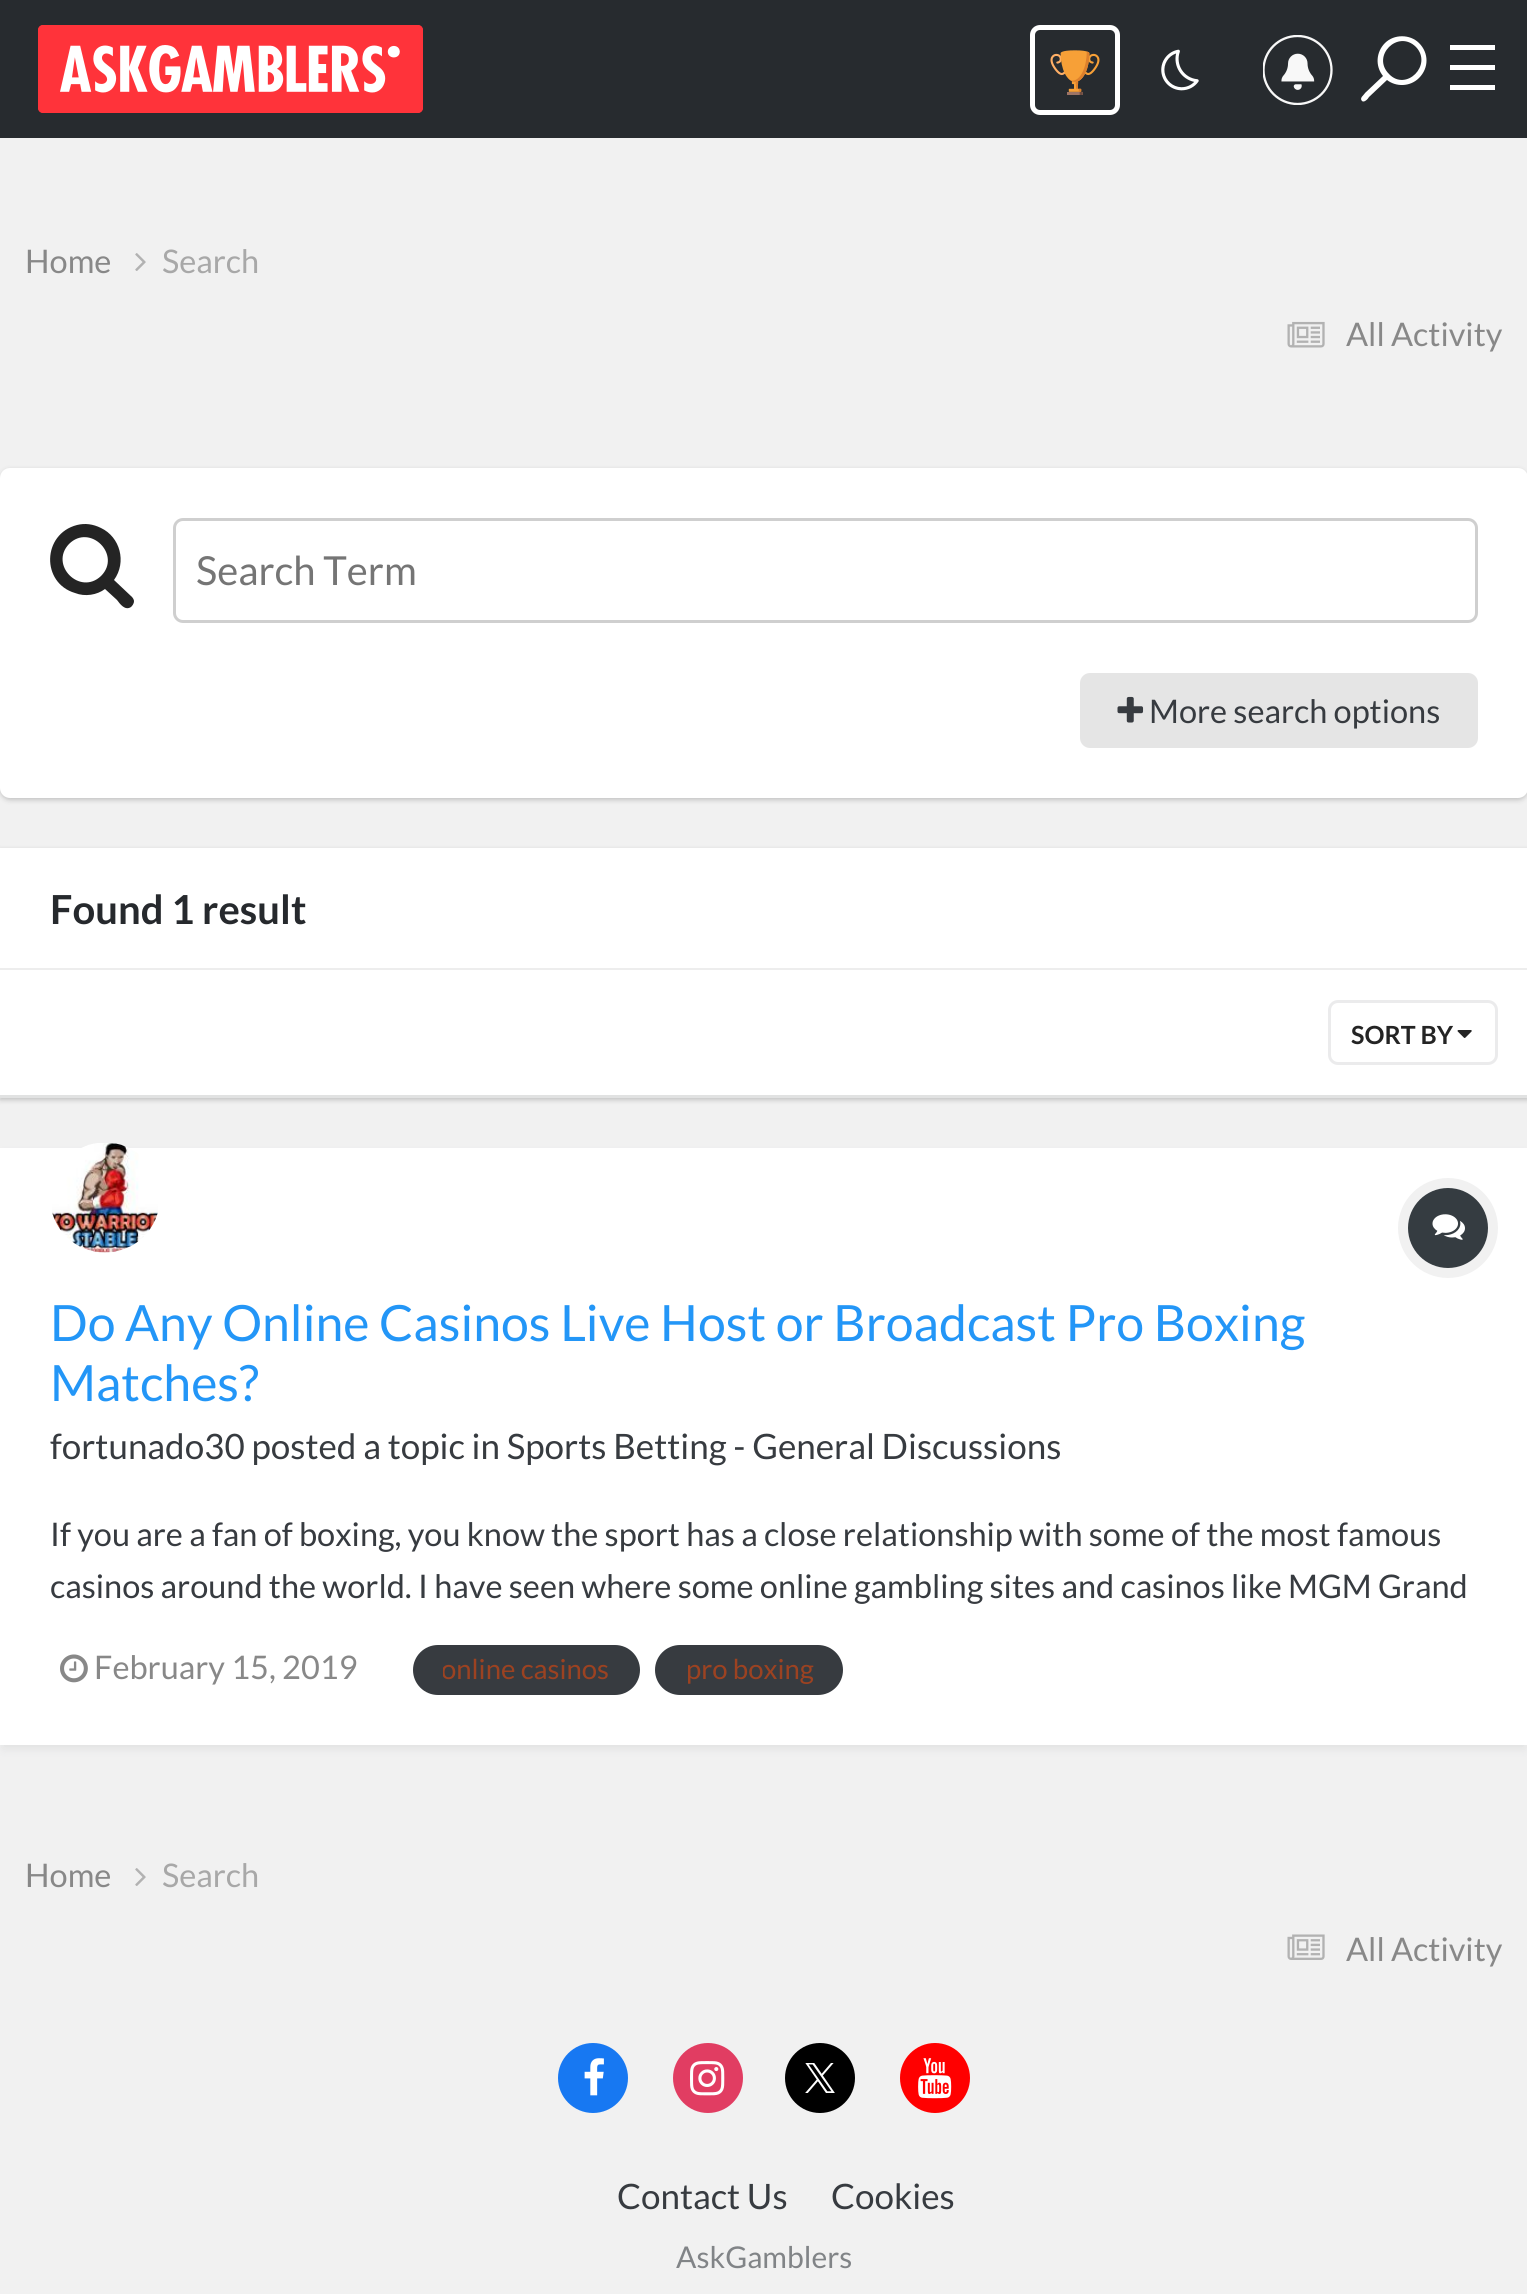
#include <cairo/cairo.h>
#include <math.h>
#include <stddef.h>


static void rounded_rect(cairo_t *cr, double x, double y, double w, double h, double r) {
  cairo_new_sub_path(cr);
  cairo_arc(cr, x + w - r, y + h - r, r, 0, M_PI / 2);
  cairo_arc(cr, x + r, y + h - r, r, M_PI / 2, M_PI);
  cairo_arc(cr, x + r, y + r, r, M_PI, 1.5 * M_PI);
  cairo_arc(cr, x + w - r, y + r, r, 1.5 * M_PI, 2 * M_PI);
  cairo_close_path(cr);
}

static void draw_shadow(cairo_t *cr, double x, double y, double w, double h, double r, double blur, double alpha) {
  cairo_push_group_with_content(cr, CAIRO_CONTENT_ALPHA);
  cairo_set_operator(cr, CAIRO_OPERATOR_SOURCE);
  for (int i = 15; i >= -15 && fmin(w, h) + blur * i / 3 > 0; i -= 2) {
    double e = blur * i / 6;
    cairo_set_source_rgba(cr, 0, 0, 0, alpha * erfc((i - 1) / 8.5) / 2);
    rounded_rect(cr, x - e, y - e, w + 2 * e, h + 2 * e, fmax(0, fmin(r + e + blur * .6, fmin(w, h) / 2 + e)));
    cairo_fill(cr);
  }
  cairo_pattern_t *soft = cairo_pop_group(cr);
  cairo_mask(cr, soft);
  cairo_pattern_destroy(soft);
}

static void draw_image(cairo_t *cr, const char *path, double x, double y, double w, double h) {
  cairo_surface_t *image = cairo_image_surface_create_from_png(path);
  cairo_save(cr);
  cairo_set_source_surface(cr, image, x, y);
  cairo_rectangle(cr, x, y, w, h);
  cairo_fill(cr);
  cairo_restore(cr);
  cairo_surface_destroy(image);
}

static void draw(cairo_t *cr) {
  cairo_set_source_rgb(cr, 241 / 255.0, 241 / 255.0, 241 / 255.0);
  cairo_paint(cr);
  cairo_set_source_rgb(cr, 39 / 255.0, 43 / 255.0, 47 / 255.0);
  cairo_rectangle(cr, 0, 0, 1527, 138);
  cairo_fill(cr);
  cairo_set_source_rgb(cr, 1, 51 / 255.0, 58 / 255.0);
  rounded_rect(cr, 38, 25, 385, 88, 5);
  cairo_fill(cr);
  draw_image(cr, "images/1.png", 38, 25, 385, 88);
  rounded_rect(cr, 1032.5, 27.5, 85, 85, 7.5);
  cairo_set_source_rgb(cr, 1, 1, 1);
  cairo_set_line_width(cr, 5);
  cairo_stroke(cr);
  draw_image(cr, "images/2.png", 1050, 50, 50, 45);
  draw_image(cr, "images/3.png", 1161, 49, 38, 42);
  draw_image(cr, "images/4.png", 1263, 35, 70, 70);
  cairo_set_fill_rule(cr, CAIRO_FILL_RULE_EVEN_ODD);
  cairo_new_path(cr);
  cairo_move_to(cr, 1387, 80);
  cairo_line_to(cr, 1369, 97);
  cairo_curve_to(cr, 1368, 99, 1364, 103, 1362, 101);
  cairo_curve_to(cr, 1359, 98, 1364, 95, 1365, 93);
  cairo_line_to(cr, 1383, 76);
  cairo_curve_to(cr, 1375, 66, 1376, 52, 1385, 43);
  cairo_curve_to(cr, 1394, 34, 1410, 34, 1419, 43);
  cairo_curve_to(cr, 1429, 53, 1429, 68, 1419, 78);
  cairo_curve_to(cr, 1410, 87, 1396, 87, 1387, 80);
  cairo_close_path(cr);
  cairo_move_to(cr, 1389, 74);
  cairo_curve_to(cr, 1406, 92, 1433, 65, 1416, 47);
  cairo_curve_to(cr, 1398, 29, 1371, 56, 1389, 74);
  cairo_close_path(cr);
  cairo_fill(cr);
  cairo_rectangle(cr, 1450, 45, 45, 5);
  cairo_fill(cr);
  cairo_rectangle(cr, 1450, 65, 45, 5);
  cairo_fill(cr);
  cairo_rectangle(cr, 1450, 85, 45, 5);
  cairo_fill(cr);
  draw_image(cr, "images/5.png", 135, 253, 11, 18);
  draw_image(cr, "images/6.png", 1287, 321, 38, 27);
  cairo_set_source_rgb(cr, 0, 0, 0);
  draw_shadow(cr, 0, 470, 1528, 330, 10, 2.5, 0.2);
  cairo_set_source_rgb(cr, 1, 1, 1);
  rounded_rect(cr, 0, 468, 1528, 330, 10);
  cairo_fill(cr);
  cairo_set_source_rgb(cr, 36 / 255.0, 36 / 255.0, 36 / 255.0);
  cairo_set_fill_rule(cr, CAIRO_FILL_RULE_WINDING);
  cairo_new_path(cr);
  cairo_move_to(cr, 101, 576);
  cairo_curve_to(cr, 122, 555, 90, 523, 69, 544);
  cairo_curve_to(cr, 49, 565, 80, 596, 101, 576);
  cairo_close_path(cr);
  cairo_move_to(cr, 134, 601);
  cairo_curve_to(cr, 134, 604, 132, 606, 131, 607);
  cairo_curve_to(cr, 125, 611, 120, 604, 117, 600);
  cairo_line_to(cr, 105, 589);
  cairo_curve_to(cr, 97, 595, 85, 597, 75, 593);
  cairo_curve_to(cr, 41, 583, 42, 534, 77, 525);
  cairo_curve_to(cr, 85, 523, 93, 524, 101, 528);
  cairo_curve_to(cr, 120, 537, 127, 562, 114, 580);
  cairo_line_to(cr, 132, 597);
  cairo_curve_to(cr, 133, 598, 134, 600, 134, 601);
  cairo_close_path(cr);
  cairo_fill(cr);
  rounded_rect(cr, 174.5, 519.5, 1302, 102, 8.5);
  cairo_set_source_rgb(cr, 207 / 255.0, 207 / 255.0, 207 / 255.0);
  cairo_set_line_width(cr, 3);
  cairo_stroke(cr);
  cairo_set_source_rgb(cr, 229 / 255.0, 229 / 255.0, 229 / 255.0);
  rounded_rect(cr, 1080, 673, 398, 75, 10);
  cairo_fill(cr);
  draw_image(cr, "images/7.png", 1117, 696, 27, 27);
  cairo_set_source_rgb(cr, 0, 0, 0);
  draw_shadow(cr, 0, 850, 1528, 250, 0, 2.5, 0.2);
  cairo_set_source_rgb(cr, 1, 1, 1);
  cairo_rectangle(cr, 0, 848, 1527, 120);
  cairo_fill(cr);
  cairo_set_source_rgb(cr, 237 / 255.0, 237 / 255.0, 237 / 255.0);
  cairo_rectangle(cr, 0, 968, 1527, 2);
  cairo_fill(cr);
  cairo_set_source_rgb(cr, 1, 1, 1);
  cairo_rectangle(cr, 0, 970, 1527, 125);
  cairo_fill(cr);
  cairo_set_source_rgb(cr, 225 / 255.0, 226 / 255.0, 226 / 255.0);
  cairo_rectangle(cr, 0, 1095, 1527, 3);
  cairo_fill(cr);
  draw_image(cr, "images/8.png", 1457, 1030, 15, 8);
  rounded_rect(cr, 1329.5, 1001.5, 167, 62, 8.5);
  cairo_set_source_rgb(cr, 235 / 255.0, 235 / 255.0, 236 / 255.0);
  cairo_stroke(cr);
  cairo_set_source_rgb(cr, 55 / 255.0, 59 / 255.0, 64 / 255.0);
  draw_shadow(cr, 3, 1155, 1522, 593, 0, 5, 0.1);
  cairo_set_source_rgb(cr, 1, 1, 1);
  cairo_rectangle(cr, 0, 1148, 1527, 597);
  cairo_fill(cr);
  cairo_arc(cr, 105, 1198, 55, 0, 2 * M_PI);
  cairo_fill(cr);
  draw_image(cr, "images/9.png", 52, 1143, 106, 110);
  cairo_arc(cr, 1448, 1228, 45, 0, 2 * M_PI);
  cairo_set_source_rgb(cr, 241 / 255.0, 241 / 255.0, 241 / 255.0);
  cairo_set_line_width(cr, 10);
  cairo_stroke(cr);
  cairo_set_source_rgb(cr, 53 / 255.0, 60 / 255.0, 65 / 255.0);
  cairo_arc(cr, 1448, 1228, 40, 0, 2 * M_PI);
  cairo_fill(cr);
  draw_image(cr, "images/10.png", 1432, 1214, 33, 26);
  draw_image(cr, "images/11.png", 60, 1654, 28, 29);
  cairo_set_source_rgb(cr, 55 / 255.0, 59 / 255.0, 64 / 255.0);
  rounded_rect(cr, 413, 1645, 227, 50, 25);
  cairo_fill(cr);
  rounded_rect(cr, 655, 1645, 188, 50, 25);
  cairo_fill(cr);
  draw_image(cr, "images/5.png", 135, 1868, 11, 18);
  draw_image(cr, "images/12.png", 1287, 1934, 38, 26);
  cairo_set_source_rgb(cr, 23 / 255.0, 120 / 255.0, 242 / 255.0);
  cairo_arc(cr, 593, 2078, 35, 0, 2 * M_PI);
  cairo_fill(cr);
  draw_image(cr, "images/13.png", 584, 2058, 20, 38);
  cairo_set_source_rgb(cr, 225 / 255.0, 61 / 255.0, 98 / 255.0);
  cairo_arc(cr, 708, 2078, 35, 0, 2 * M_PI);
  cairo_fill(cr);
  draw_image(cr, "images/14.png", 690, 2061, 35, 35);
  cairo_set_source_rgb(cr, 0, 0, 0);
  cairo_arc(cr, 820, 2078, 35, 0, 2 * M_PI);
  cairo_fill(cr);
  draw_image(cr, "images/15.png", 805, 2063, 30, 30);
  cairo_set_source_rgb(cr, 1, 0, 0);
  cairo_arc(cr, 935, 2078, 35, 0, 2 * M_PI);
  cairo_fill(cr);
  draw_image(cr, "images/16.png", 918, 2058, 34, 41);
  cairo_select_font_face(cr, "Lato", CAIRO_FONT_SLANT_NORMAL, CAIRO_FONT_WEIGHT_NORMAL);
  cairo_set_font_size(cr, 32.5);
  cairo_set_source_rgb(cr, 136 / 255.0, 136 / 255.0, 136 / 255.0);
  cairo_move_to(cr, 25, 273);
  cairo_show_text(cr, "Home");
  cairo_set_source_rgb(cr, 168 / 255.0, 168 / 255.0, 168 / 255.0);
  cairo_move_to(cr, 162, 273);
  cairo_show_text(cr, "Search");
  cairo_set_source_rgb(cr, 136 / 255.0, 136 / 255.0, 136 / 255.0);
  cairo_move_to(cr, 1346, 346);
  cairo_show_text(cr, "All Activity");
  cairo_set_font_size(cr, 40);
  cairo_set_source_rgb(cr, 117 / 255.0, 117 / 255.0, 117 / 255.0);
  cairo_move_to(cr, 196, 585);
  cairo_show_text(cr, "Search Term");
  cairo_set_font_size(cr, 32.5);
  cairo_set_source_rgb(cr, 55 / 255.0, 59 / 255.0, 64 / 255.0);
  cairo_move_to(cr, 1149, 723);
  cairo_show_text(cr, "More search options");
  cairo_select_font_face(cr, "Lato", CAIRO_FONT_SLANT_NORMAL, CAIRO_FONT_WEIGHT_BOLD);
  cairo_set_font_size(cr, 40);
  cairo_set_source_rgb(cr, 38 / 255.0, 41 / 255.0, 45 / 255.0);
  cairo_move_to(cr, 50, 924);
  cairo_show_text(cr, "Found 1 result");
  cairo_set_font_size(cr, 25);
  cairo_set_source_rgb(cr, 36 / 255.0, 36 / 255.0, 36 / 255.0);
  cairo_move_to(cr, 1351, 1044);
  cairo_show_text(cr, "SORT BY");
  cairo_select_font_face(cr, "Lato", CAIRO_FONT_SLANT_NORMAL, CAIRO_FONT_WEIGHT_NORMAL);
  cairo_set_font_size(cr, 50);
  cairo_set_source_rgb(cr, 35 / 255.0, 150 / 255.0, 247 / 255.0);
  cairo_move_to(cr, 50, 1341);
  cairo_show_text(cr, "Do Any Online Casinos Live Host or Broadcast Pro Boxing");
  cairo_move_to(cr, 50, 1401);
  cairo_show_text(cr, "Matches?");
  cairo_set_font_size(cr, 35);
  cairo_set_source_rgb(cr, 55 / 255.0, 59 / 255.0, 64 / 255.0);
  cairo_move_to(cr, 50, 1459);
  cairo_show_text(cr, "fortunado30 posted a topic in Sports Betting - General Discussions");
  cairo_set_font_size(cr, 32.5);
  cairo_move_to(cr, 50, 1546);
  cairo_show_text(cr, "If you are a fan of boxing, you know the sport has a close relationship with some of the most famous");
  cairo_move_to(cr, 50, 1598);
  cairo_show_text(cr, "casinos around the world. I have seen where some online gambling sites and casinos like MGM Grand");
  cairo_set_source_rgb(cr, 136 / 255.0, 136 / 255.0, 136 / 255.0);
  cairo_move_to(cr, 94, 1679);
  cairo_show_text(cr, "February 15, 2019");
  cairo_save(cr);
  cairo_rectangle(cr, 443, 1645, 167, 50);
  cairo_clip(cr);
  cairo_set_font_size(cr, 27.5);
  cairo_set_source_rgb(cr, 156 / 255.0, 66 / 255.0, 33 / 255.0);
  cairo_move_to(cr, 441, 1679);
  cairo_show_text(cr, "online casinos");
  cairo_restore(cr);
  cairo_set_font_size(cr, 27.5);
  cairo_set_source_rgb(cr, 156 / 255.0, 66 / 255.0, 33 / 255.0);
  cairo_move_to(cr, 686, 1679);
  cairo_show_text(cr, "pro boxing");
  cairo_set_font_size(cr, 32.5);
  cairo_set_source_rgb(cr, 136 / 255.0, 136 / 255.0, 136 / 255.0);
  cairo_move_to(cr, 25, 1887);
  cairo_show_text(cr, "Home");
  cairo_set_source_rgb(cr, 168 / 255.0, 168 / 255.0, 168 / 255.0);
  cairo_move_to(cr, 162, 1887);
  cairo_show_text(cr, "Search");
  cairo_set_source_rgb(cr, 136 / 255.0, 136 / 255.0, 136 / 255.0);
  cairo_move_to(cr, 1346, 1961);
  cairo_show_text(cr, "All Activity");
  cairo_set_font_size(cr, 35);
  cairo_set_source_rgb(cr, 55 / 255.0, 59 / 255.0, 64 / 255.0);
  cairo_move_to(cr, 617, 2209);
  cairo_show_text(cr, "Contact Us");
  cairo_move_to(cr, 831, 2209);
  cairo_show_text(cr, "Cookies");
  cairo_set_font_size(cr, 30);
  cairo_set_source_rgb(cr, 129 / 255.0, 132 / 255.0, 135 / 255.0);
  cairo_move_to(cr, 676, 2268);
  cairo_show_text(cr, "AskGamblers");
}

int main(void) {
  cairo_surface_t *surface = cairo_image_surface_create(CAIRO_FORMAT_RGB24, 1527, 2294);
  cairo_t *cr = cairo_create(surface);
  cairo_font_options_t *options = cairo_font_options_create();
  cairo_font_options_set_hint_metrics(options, CAIRO_HINT_METRICS_OFF);
  cairo_font_options_set_hint_style(options, CAIRO_HINT_STYLE_NONE);
  cairo_set_font_options(cr, options);
  cairo_set_miter_limit(cr, 4);
  draw(cr);
  cairo_surface_write_to_png(surface, "out.png");
  cairo_font_options_destroy(options);
  cairo_destroy(cr);
  cairo_surface_destroy(surface);
  return 0;
}
